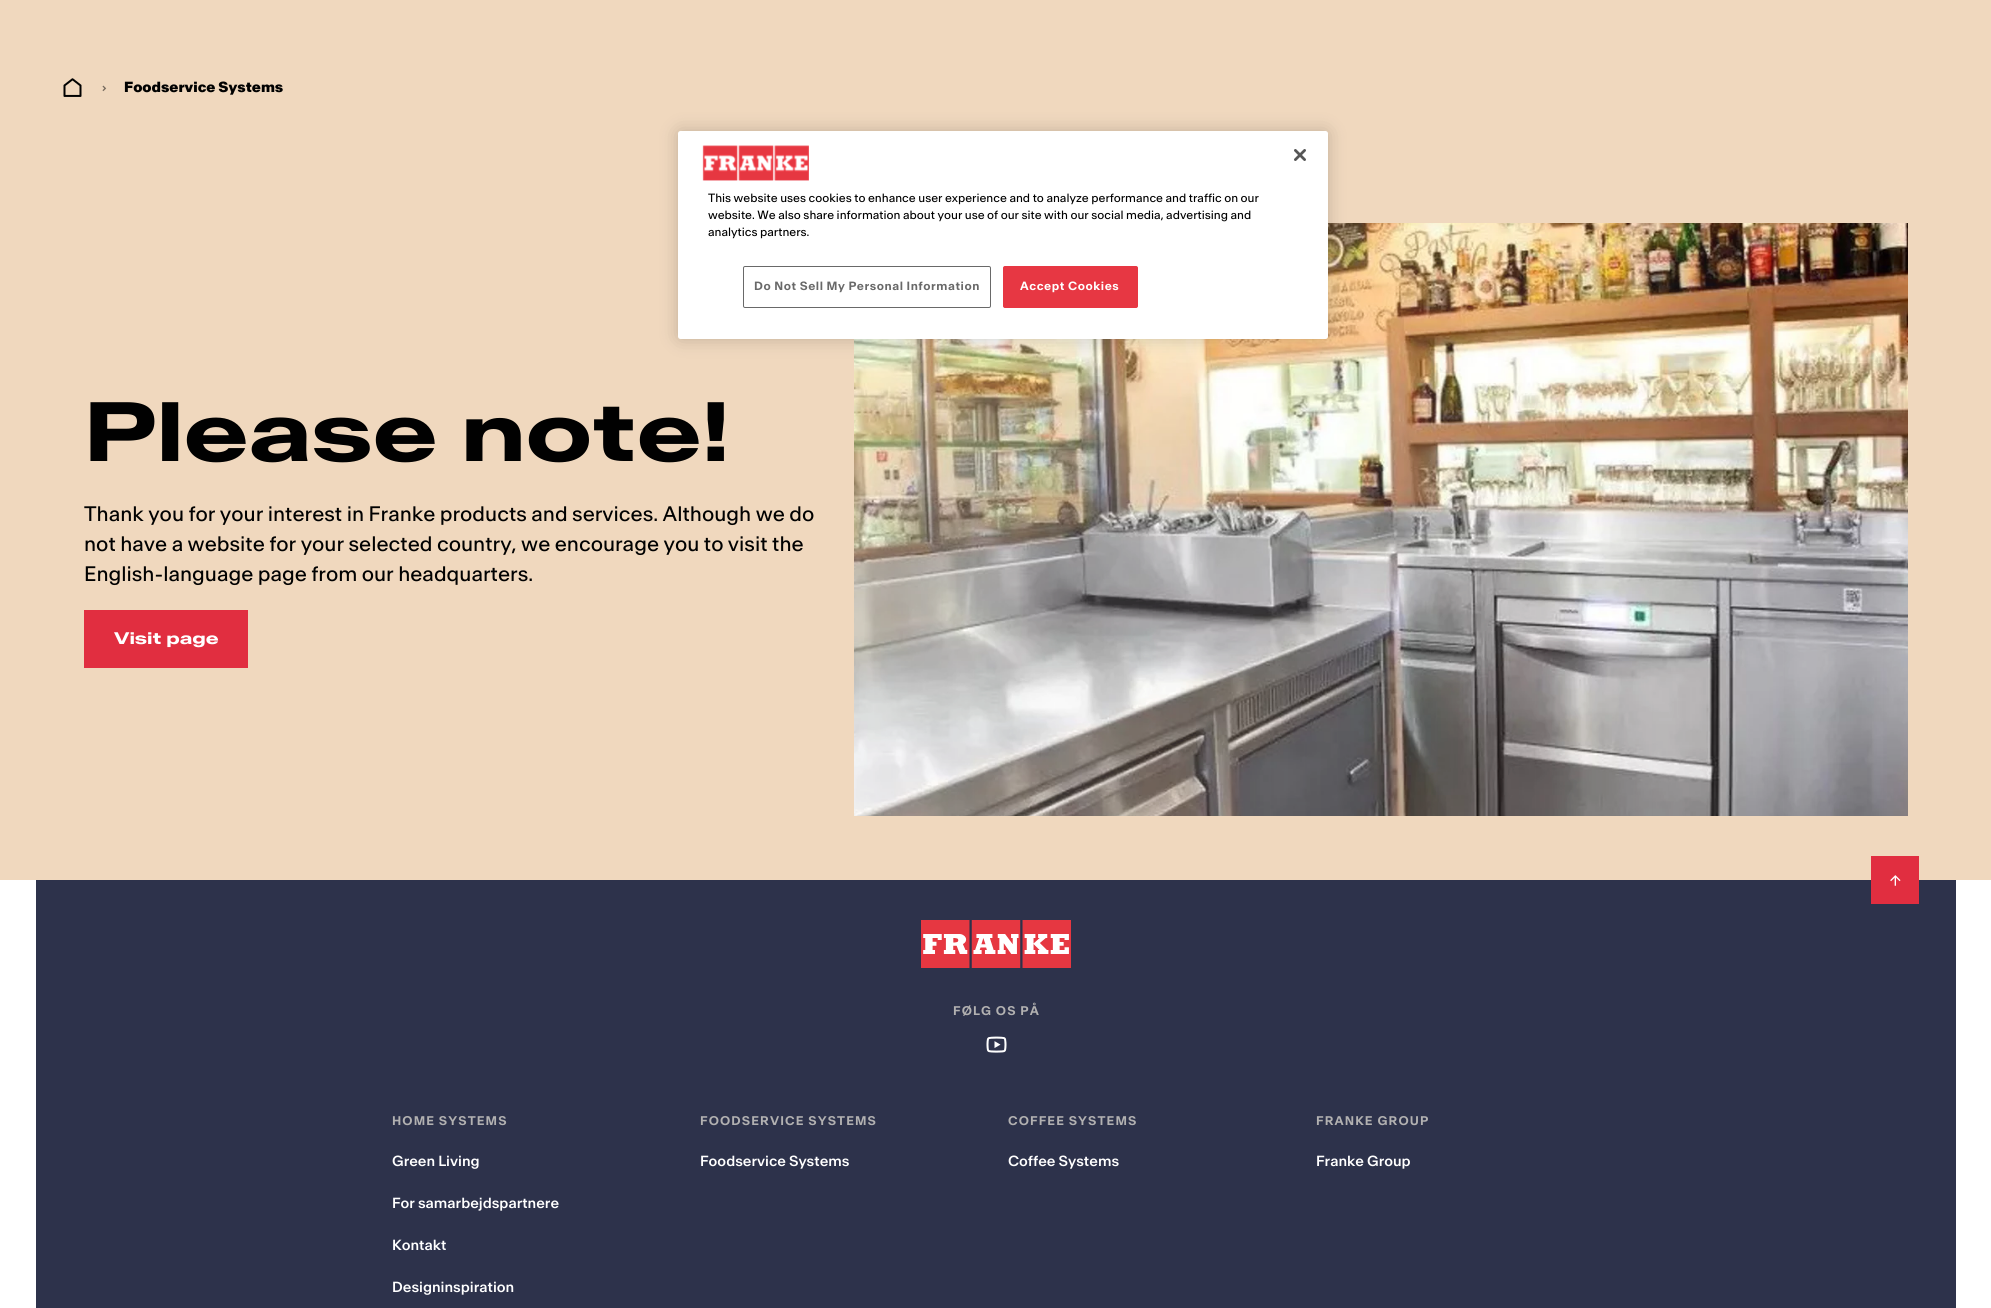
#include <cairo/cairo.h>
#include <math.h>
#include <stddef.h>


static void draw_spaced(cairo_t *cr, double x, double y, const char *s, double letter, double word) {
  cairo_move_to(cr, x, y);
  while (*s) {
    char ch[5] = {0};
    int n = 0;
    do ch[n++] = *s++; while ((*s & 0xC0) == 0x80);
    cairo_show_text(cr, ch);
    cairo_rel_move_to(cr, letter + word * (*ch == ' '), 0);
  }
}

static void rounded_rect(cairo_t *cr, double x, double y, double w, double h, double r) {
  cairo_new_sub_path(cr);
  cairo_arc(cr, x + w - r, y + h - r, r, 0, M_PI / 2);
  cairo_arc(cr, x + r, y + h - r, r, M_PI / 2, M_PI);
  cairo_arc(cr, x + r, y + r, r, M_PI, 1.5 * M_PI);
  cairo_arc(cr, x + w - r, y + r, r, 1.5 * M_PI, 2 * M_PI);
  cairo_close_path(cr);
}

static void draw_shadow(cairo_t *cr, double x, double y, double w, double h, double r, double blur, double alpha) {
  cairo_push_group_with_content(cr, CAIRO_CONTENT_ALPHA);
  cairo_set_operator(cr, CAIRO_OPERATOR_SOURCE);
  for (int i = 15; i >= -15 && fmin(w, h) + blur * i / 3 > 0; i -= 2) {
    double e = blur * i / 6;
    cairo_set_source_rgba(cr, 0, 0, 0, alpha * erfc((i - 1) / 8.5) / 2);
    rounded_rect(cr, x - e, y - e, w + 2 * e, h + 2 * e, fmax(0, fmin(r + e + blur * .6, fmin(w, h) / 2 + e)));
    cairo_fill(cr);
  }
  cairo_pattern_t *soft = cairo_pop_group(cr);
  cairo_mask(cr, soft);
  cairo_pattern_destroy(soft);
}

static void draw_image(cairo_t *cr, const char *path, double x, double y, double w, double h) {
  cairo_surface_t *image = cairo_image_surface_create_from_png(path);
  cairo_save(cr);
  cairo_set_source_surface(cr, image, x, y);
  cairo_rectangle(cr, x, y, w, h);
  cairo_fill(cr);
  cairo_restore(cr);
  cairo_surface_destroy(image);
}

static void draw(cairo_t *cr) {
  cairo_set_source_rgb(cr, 1, 1, 1);
  cairo_paint(cr);
  cairo_set_source_rgb(cr, 240 / 255.0, 216 / 255.0, 190 / 255.0);
  cairo_rectangle(cr, 0, 0, 1991, 880);
  cairo_fill(cr);
  draw_image(cr, "images/1.png", 63, 78, 19, 19);
  draw_image(cr, "images/2.png", 102, 85, 5, 7);
  cairo_set_source_rgb(cr, 225 / 255.0, 46 / 255.0, 64 / 255.0);
  cairo_rectangle(cr, 84, 610, 164, 58);
  cairo_fill(cr);
  draw_image(cr, "images/3.png", 854, 223, 1054, 593);
  cairo_set_source_rgb(cr, 45 / 255.0, 50 / 255.0, 75 / 255.0);
  cairo_rectangle(cr, 36, 880, 1920, 428);
  cairo_fill(cr);
  cairo_set_source_rgb(cr, 225 / 255.0, 46 / 255.0, 64 / 255.0);
  cairo_rectangle(cr, 1871, 856, 48, 48);
  cairo_fill(cr);
  draw_image(cr, "images/4.png", 1890, 875, 11, 11);
  draw_image(cr, "images/5.png", 921, 920, 150, 48);
  draw_image(cr, "images/6.png", 986, 1036, 21, 17);
  cairo_set_source_rgb(cr, 0, 0, 0);
  draw_shadow(cr, 678, 131, 650, 208, 2.5, 9, 0.2);
  cairo_set_source_rgb(cr, 1, 1, 1);
  rounded_rect(cr, 678, 131, 650, 208, 2.5);
  cairo_fill(cr);
  draw_image(cr, "images/7.png", 1294, 149, 12, 12);
  draw_image(cr, "images/8.png", 702, 145, 107, 36);
  rounded_rect(cr, 743.5, 266.5, 247, 41, 1.5);
  cairo_set_source_rgb(cr, 105 / 255.0, 105 / 255.0, 105 / 255.0);
  cairo_set_line_width(cr, 1);
  cairo_stroke(cr);
  cairo_set_source_rgb(cr, 231 / 255.0, 55 / 255.0, 67 / 255.0);
  rounded_rect(cr, 1003.5, 266.5, 134, 41, 1.5);
  cairo_fill_preserve(cr);
  cairo_stroke(cr);
  cairo_select_font_face(cr, "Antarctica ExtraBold", CAIRO_FONT_SLANT_NORMAL, CAIRO_FONT_WEIGHT_NORMAL);
  cairo_set_font_size(cr, 14);
  cairo_set_source_rgb(cr, 1 / 255.0, 1 / 255.0, 1 / 255.0);
  cairo_move_to(cr, 124, 92);
  cairo_show_text(cr, "Foodservice Systems");
  cairo_select_font_face(cr, "Antarctica", CAIRO_FONT_SLANT_NORMAL, CAIRO_FONT_WEIGHT_BOLD);
  cairo_set_font_size(cr, 80);
  cairo_move_to(cr, 84, 461);
  cairo_show_text(cr, "Please note!");
  cairo_select_font_face(cr, "Antarctica", CAIRO_FONT_SLANT_NORMAL, CAIRO_FONT_WEIGHT_NORMAL);
  cairo_set_font_size(cr, 20);
  cairo_move_to(cr, 84, 521);
  cairo_show_text(cr, "Thank you for your interest in Franke products and services. Although we do");
  cairo_move_to(cr, 84, 551);
  cairo_show_text(cr, "not have a website for your selected country, we encourage you to visit the");
  cairo_move_to(cr, 84, 581);
  cairo_show_text(cr, "English-language page from our headquarters.");
  cairo_select_font_face(cr, "Antarctica", CAIRO_FONT_SLANT_NORMAL, CAIRO_FONT_WEIGHT_BOLD);
  cairo_set_font_size(cr, 16);
  cairo_set_source_rgb(cr, 1, 1, 1);
  cairo_move_to(cr, 114, 644);
  cairo_show_text(cr, "Visit page");
  cairo_select_font_face(cr, "Antarctica SemiBold", CAIRO_FONT_SLANT_NORMAL, CAIRO_FONT_WEIGHT_NORMAL);
  cairo_set_font_size(cr, 12);
  cairo_set_source_rgb(cr, 178 / 255.0, 177 / 255.0, 177 / 255.0);
  draw_spaced(cr, 953, 1015, "FØLG OS PÅ", 1.1, 0);
  draw_spaced(cr, 392, 1125, "HOME SYSTEMS", 1.1, 0);
  cairo_select_font_face(cr, "Antarctica Medium", CAIRO_FONT_SLANT_NORMAL, CAIRO_FONT_WEIGHT_NORMAL);
  cairo_set_font_size(cr, 14);
  cairo_set_source_rgb(cr, 1, 1, 1);
  cairo_move_to(cr, 392, 1166);
  cairo_show_text(cr, "Green Living");
  cairo_move_to(cr, 392, 1208);
  cairo_show_text(cr, "For samarbejdspartnere");
  cairo_move_to(cr, 392, 1250);
  cairo_show_text(cr, "Kontakt");
  cairo_move_to(cr, 392, 1292);
  cairo_show_text(cr, "Designinspiration");
  cairo_select_font_face(cr, "Antarctica SemiBold", CAIRO_FONT_SLANT_NORMAL, CAIRO_FONT_WEIGHT_NORMAL);
  cairo_set_font_size(cr, 12);
  cairo_set_source_rgb(cr, 178 / 255.0, 177 / 255.0, 177 / 255.0);
  draw_spaced(cr, 700, 1125, "FOODSERVICE SYSTEMS", 1.1, 0);
  cairo_select_font_face(cr, "Antarctica Medium", CAIRO_FONT_SLANT_NORMAL, CAIRO_FONT_WEIGHT_NORMAL);
  cairo_set_font_size(cr, 14);
  cairo_set_source_rgb(cr, 1, 1, 1);
  cairo_move_to(cr, 700, 1166);
  cairo_show_text(cr, "Foodservice Systems");
  cairo_select_font_face(cr, "Antarctica SemiBold", CAIRO_FONT_SLANT_NORMAL, CAIRO_FONT_WEIGHT_NORMAL);
  cairo_set_font_size(cr, 12);
  cairo_set_source_rgb(cr, 178 / 255.0, 177 / 255.0, 177 / 255.0);
  draw_spaced(cr, 1008, 1125, "COFFEE SYSTEMS", 1.1, 0);
  cairo_select_font_face(cr, "Antarctica Medium", CAIRO_FONT_SLANT_NORMAL, CAIRO_FONT_WEIGHT_NORMAL);
  cairo_set_font_size(cr, 14);
  cairo_set_source_rgb(cr, 1, 1, 1);
  cairo_move_to(cr, 1008, 1166);
  cairo_show_text(cr, "Coffee Systems");
  cairo_select_font_face(cr, "Antarctica SemiBold", CAIRO_FONT_SLANT_NORMAL, CAIRO_FONT_WEIGHT_NORMAL);
  cairo_set_font_size(cr, 12);
  cairo_set_source_rgb(cr, 178 / 255.0, 177 / 255.0, 177 / 255.0);
  draw_spaced(cr, 1316, 1125, "FRANKE GROUP", 1.1, 0);
  cairo_select_font_face(cr, "Antarctica Medium", CAIRO_FONT_SLANT_NORMAL, CAIRO_FONT_WEIGHT_NORMAL);
  cairo_set_font_size(cr, 14);
  cairo_set_source_rgb(cr, 1, 1, 1);
  cairo_move_to(cr, 1316, 1166);
  cairo_show_text(cr, "Franke Group");
  cairo_select_font_face(cr, "Antarctica", CAIRO_FONT_SLANT_NORMAL, CAIRO_FONT_WEIGHT_NORMAL);
  cairo_set_font_size(cr, 11.4);
  cairo_set_source_rgb(cr, 1 / 255.0, 1 / 255.0, 1 / 255.0);
  cairo_move_to(cr, 708, 202);
  cairo_show_text(cr, "This website uses cookies to enhance user experience and to analyze performance and traffic on our");
  cairo_move_to(cr, 708, 219);
  cairo_show_text(cr, "website. We also share information about your use of our site with our social media, advertising and");
  cairo_move_to(cr, 708, 236);
  cairo_show_text(cr, "analytics partners.");
  cairo_select_font_face(cr, "Antarctica SemiBold", CAIRO_FONT_SLANT_NORMAL, CAIRO_FONT_WEIGHT_NORMAL);
  cairo_set_source_rgb(cr, 105 / 255.0, 105 / 255.0, 105 / 255.0);
  draw_spaced(cr, 754, 290, "Do Not Sell My Personal Information", 0.55, 0);
  cairo_set_source_rgb(cr, 1, 1, 1);
  draw_spaced(cr, 1020, 290, "Accept Cookies", 0.55, 0);
}

int main(void) {
  cairo_surface_t *surface = cairo_image_surface_create(CAIRO_FORMAT_RGB24, 1991, 1308);
  cairo_t *cr = cairo_create(surface);
  cairo_font_options_t *options = cairo_font_options_create();
  cairo_font_options_set_hint_metrics(options, CAIRO_HINT_METRICS_OFF);
  cairo_font_options_set_hint_style(options, CAIRO_HINT_STYLE_NONE);
  cairo_set_font_options(cr, options);
  cairo_set_miter_limit(cr, 4);
  draw(cr);
  cairo_surface_write_to_png(surface, "out.png");
  cairo_font_options_destroy(options);
  cairo_destroy(cr);
  cairo_surface_destroy(surface);
  return 0;
}
